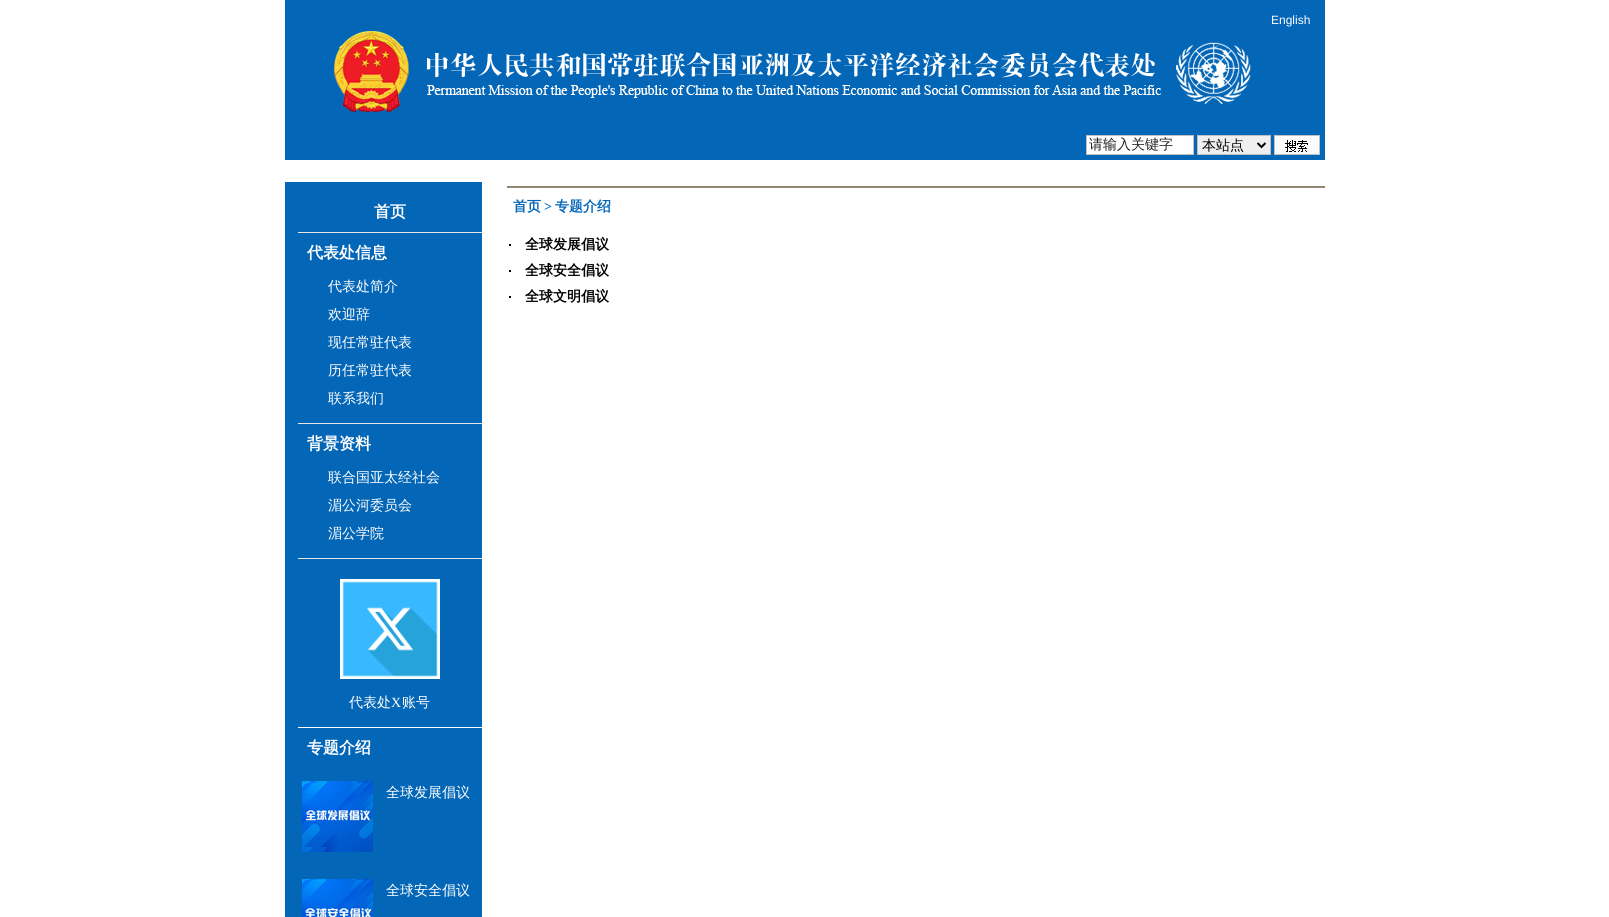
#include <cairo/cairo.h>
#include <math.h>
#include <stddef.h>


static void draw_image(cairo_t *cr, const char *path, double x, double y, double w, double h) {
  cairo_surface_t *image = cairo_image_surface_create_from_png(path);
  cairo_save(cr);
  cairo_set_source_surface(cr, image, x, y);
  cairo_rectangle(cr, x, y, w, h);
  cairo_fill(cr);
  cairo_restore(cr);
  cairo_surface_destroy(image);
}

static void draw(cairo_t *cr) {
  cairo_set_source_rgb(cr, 1, 1, 1);
  cairo_paint(cr);
  cairo_set_source_rgb(cr, 4 / 255.0, 102 / 255.0, 183 / 255.0);
  cairo_rectangle(cr, 285, 0, 1040, 160);
  cairo_fill(cr);
  draw_image(cr, "images/1.png", 334, 31, 917, 81);
  cairo_set_source_rgb(cr, 1, 1, 1);
  cairo_rectangle(cr, 1086.5, 135.5, 107, 19);
  cairo_fill_preserve(cr);
  cairo_set_source_rgb(cr, 192 / 255.0, 192 / 255.0, 192 / 255.0);
  cairo_set_line_width(cr, 1);
  cairo_stroke(cr);
  cairo_set_source_rgb(cr, 239 / 255.0, 239 / 255.0, 239 / 255.0);
  cairo_rectangle(cr, 1197.5, 135.5, 73, 19);
  cairo_fill_preserve(cr);
  cairo_set_source_rgb(cr, 192 / 255.0, 192 / 255.0, 192 / 255.0);
  cairo_stroke(cr);
  cairo_new_path(cr);
  cairo_move_to(cr, 1257.5, 143);
  cairo_line_to(cr, 1261.5, 147);
  cairo_line_to(cr, 1265.5, 143);
  cairo_set_source_rgb(cr, 0, 0, 0);
  cairo_set_line_width(cr, 2);
  cairo_stroke(cr);
  draw_image(cr, "images/2.png", 1274, 135, 46, 20);
  cairo_set_source_rgb(cr, 4 / 255.0, 102 / 255.0, 183 / 255.0);
  cairo_rectangle(cr, 285, 182, 197, 735);
  cairo_fill(cr);
  cairo_set_source_rgb(cr, 230 / 255.0, 232 / 255.0, 231 / 255.0);
  cairo_rectangle(cr, 298, 232, 184, 1);
  cairo_fill(cr);
  cairo_rectangle(cr, 298, 423, 184, 1);
  cairo_fill(cr);
  cairo_rectangle(cr, 298, 558, 184, 1);
  cairo_fill(cr);
  cairo_set_source_rgb(cr, 1, 1, 1);
  cairo_rectangle(cr, 298, 727, 184, 1);
  cairo_fill(cr);
  draw_image(cr, "images/3.png", 340, 579, 100, 100);
  draw_image(cr, "images/4.png", 302, 781, 71, 71);
  draw_image(cr, "images/5.png", 302, 879, 71, 38);
  cairo_set_source_rgb(cr, 146 / 255.0, 134 / 255.0, 118 / 255.0);
  cairo_rectangle(cr, 507, 186, 818, 2);
  cairo_fill(cr);
  cairo_set_source_rgb(cr, 0, 0, 0);
  cairo_rectangle(cr, 509, 244, 2, 2);
  cairo_fill(cr);
  cairo_rectangle(cr, 509, 270, 2, 2);
  cairo_fill(cr);
  cairo_rectangle(cr, 509, 296, 2, 2);
  cairo_fill(cr);
  cairo_select_font_face(cr, "Liberation Sans", CAIRO_FONT_SLANT_NORMAL, CAIRO_FONT_WEIGHT_NORMAL);
  cairo_set_font_size(cr, 12);
  cairo_set_source_rgb(cr, 1, 1, 1);
  cairo_move_to(cr, 1271, 24);
  cairo_show_text(cr, "English");
  cairo_select_font_face(cr, "WenQuanYi Zen Hei Medium", CAIRO_FONT_SLANT_NORMAL, CAIRO_FONT_WEIGHT_NORMAL);
  cairo_set_font_size(cr, 14);
  cairo_set_source_rgb(cr, 33 / 255.0, 33 / 255.0, 33 / 255.0);
  cairo_move_to(cr, 1089, 149);
  cairo_show_text(cr, "请输入关键字");
  cairo_set_source_rgb(cr, 0, 0, 0);
  cairo_move_to(cr, 1202, 150);
  cairo_show_text(cr, "本站点");
  cairo_select_font_face(cr, "WenQuanYi Zen Hei", CAIRO_FONT_SLANT_NORMAL, CAIRO_FONT_WEIGHT_BOLD);
  cairo_set_font_size(cr, 16);
  cairo_set_source_rgb(cr, 1, 1, 1);
  cairo_move_to(cr, 374, 217);
  cairo_show_text(cr, "首页");
  cairo_move_to(cr, 307, 258);
  cairo_show_text(cr, "代表处信息");
  cairo_select_font_face(cr, "WenQuanYi Zen Hei Medium", CAIRO_FONT_SLANT_NORMAL, CAIRO_FONT_WEIGHT_NORMAL);
  cairo_set_font_size(cr, 14);
  cairo_move_to(cr, 328, 291);
  cairo_show_text(cr, "代表处简介");
  cairo_move_to(cr, 328, 319);
  cairo_show_text(cr, "欢迎辞");
  cairo_move_to(cr, 328, 347);
  cairo_show_text(cr, "现任常驻代表");
  cairo_move_to(cr, 328, 375);
  cairo_show_text(cr, "历任常驻代表");
  cairo_move_to(cr, 328, 403);
  cairo_show_text(cr, "联系我们");
  cairo_select_font_face(cr, "WenQuanYi Zen Hei", CAIRO_FONT_SLANT_NORMAL, CAIRO_FONT_WEIGHT_BOLD);
  cairo_set_font_size(cr, 16);
  cairo_move_to(cr, 307, 449);
  cairo_show_text(cr, "背景资料");
  cairo_select_font_face(cr, "WenQuanYi Zen Hei Medium", CAIRO_FONT_SLANT_NORMAL, CAIRO_FONT_WEIGHT_NORMAL);
  cairo_set_font_size(cr, 14);
  cairo_move_to(cr, 328, 482);
  cairo_show_text(cr, "联合国亚太经社会");
  cairo_move_to(cr, 328, 510);
  cairo_show_text(cr, "湄公河委员会");
  cairo_move_to(cr, 328, 538);
  cairo_show_text(cr, "湄公学院");
  cairo_move_to(cr, 349, 707);
  cairo_show_text(cr, "代表处");
  cairo_select_font_face(cr, "Liberation Serif", CAIRO_FONT_SLANT_NORMAL, CAIRO_FONT_WEIGHT_NORMAL);
  cairo_move_to(cr, 391, 707);
  cairo_show_text(cr, "X");
  cairo_select_font_face(cr, "WenQuanYi Zen Hei Medium", CAIRO_FONT_SLANT_NORMAL, CAIRO_FONT_WEIGHT_NORMAL);
  cairo_move_to(cr, 402, 707);
  cairo_show_text(cr, "账号");
  cairo_select_font_face(cr, "WenQuanYi Zen Hei", CAIRO_FONT_SLANT_NORMAL, CAIRO_FONT_WEIGHT_BOLD);
  cairo_set_font_size(cr, 16);
  cairo_move_to(cr, 307, 753);
  cairo_show_text(cr, "专题介绍");
  cairo_select_font_face(cr, "WenQuanYi Zen Hei Medium", CAIRO_FONT_SLANT_NORMAL, CAIRO_FONT_WEIGHT_NORMAL);
  cairo_set_font_size(cr, 14);
  cairo_move_to(cr, 386, 797);
  cairo_show_text(cr, "全球发展倡议");
  cairo_move_to(cr, 386, 895);
  cairo_show_text(cr, "全球安全倡议");
  cairo_select_font_face(cr, "WenQuanYi Zen Hei", CAIRO_FONT_SLANT_NORMAL, CAIRO_FONT_WEIGHT_BOLD);
  cairo_set_source_rgb(cr, 4 / 255.0, 102 / 255.0, 183 / 255.0);
  cairo_move_to(cr, 513, 211);
  cairo_show_text(cr, "首页");
  cairo_select_font_face(cr, "Liberation Serif", CAIRO_FONT_SLANT_NORMAL, CAIRO_FONT_WEIGHT_BOLD);
  cairo_move_to(cr, 544, 211);
  cairo_show_text(cr, ">");
  cairo_select_font_face(cr, "WenQuanYi Zen Hei", CAIRO_FONT_SLANT_NORMAL, CAIRO_FONT_WEIGHT_BOLD);
  cairo_move_to(cr, 555, 211);
  cairo_show_text(cr, "专题介绍");
  cairo_set_source_rgb(cr, 0, 0, 0);
  cairo_move_to(cr, 525, 249);
  cairo_show_text(cr, "全球发展倡议");
  cairo_move_to(cr, 525, 275);
  cairo_show_text(cr, "全球安全倡议");
  cairo_move_to(cr, 525, 301);
  cairo_show_text(cr, "全球文明倡议");
}

int main(void) {
  cairo_surface_t *surface = cairo_image_surface_create(CAIRO_FORMAT_RGB24, 1609, 917);
  cairo_t *cr = cairo_create(surface);
  cairo_font_options_t *options = cairo_font_options_create();
  cairo_font_options_set_hint_metrics(options, CAIRO_HINT_METRICS_OFF);
  cairo_font_options_set_hint_style(options, CAIRO_HINT_STYLE_NONE);
  cairo_set_font_options(cr, options);
  cairo_set_miter_limit(cr, 4);
  draw(cr);
  cairo_surface_write_to_png(surface, "out.png");
  cairo_font_options_destroy(options);
  cairo_destroy(cr);
  cairo_surface_destroy(surface);
  return 0;
}
